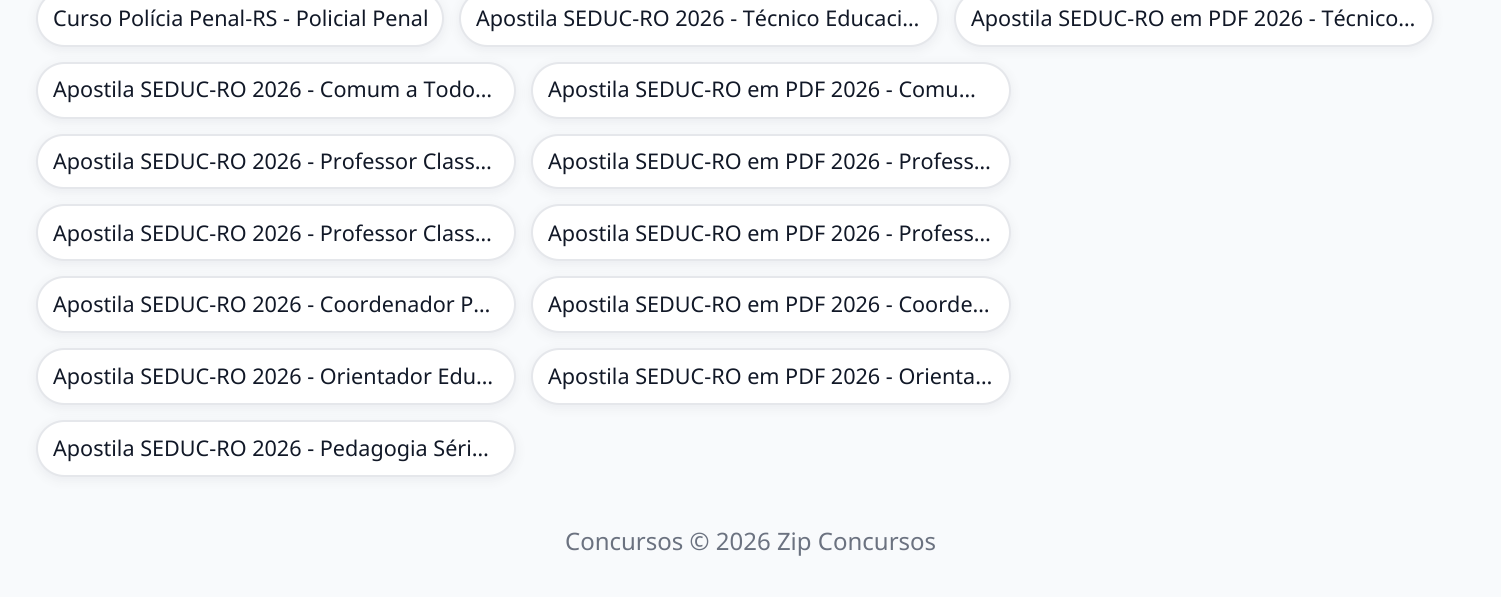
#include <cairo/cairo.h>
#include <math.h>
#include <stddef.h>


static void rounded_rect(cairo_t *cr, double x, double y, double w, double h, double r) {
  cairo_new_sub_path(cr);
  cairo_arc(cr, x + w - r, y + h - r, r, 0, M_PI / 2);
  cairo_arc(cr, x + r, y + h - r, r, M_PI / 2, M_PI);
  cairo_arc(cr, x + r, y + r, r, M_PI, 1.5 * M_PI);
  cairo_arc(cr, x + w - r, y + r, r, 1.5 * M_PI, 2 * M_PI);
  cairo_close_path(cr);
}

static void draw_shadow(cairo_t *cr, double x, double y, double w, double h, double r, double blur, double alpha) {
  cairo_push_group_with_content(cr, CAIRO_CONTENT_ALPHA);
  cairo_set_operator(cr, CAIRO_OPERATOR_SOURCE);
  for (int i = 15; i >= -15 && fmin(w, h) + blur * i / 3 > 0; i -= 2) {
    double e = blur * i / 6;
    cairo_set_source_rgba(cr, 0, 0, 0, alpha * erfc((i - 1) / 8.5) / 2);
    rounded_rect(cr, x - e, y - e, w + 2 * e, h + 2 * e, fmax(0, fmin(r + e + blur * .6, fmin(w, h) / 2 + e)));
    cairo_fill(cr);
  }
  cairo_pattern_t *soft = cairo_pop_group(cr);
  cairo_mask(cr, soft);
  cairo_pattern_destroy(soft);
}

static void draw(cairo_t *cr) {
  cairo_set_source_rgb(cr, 248 / 255.0, 250 / 255.0, 252 / 255.0);
  cairo_paint(cr);
  cairo_set_source_rgb(cr, 2 / 255.0, 6 / 255.0, 23 / 255.0);
  draw_shadow(cr, 36, -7, 408, 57, 28.5, 6, 0.06);
  cairo_set_source_rgb(cr, 1, 1, 1);
  rounded_rect(cr, 37, -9, 406, 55, 27.5);
  cairo_fill_preserve(cr);
  cairo_set_source_rgb(cr, 229 / 255.0, 231 / 255.0, 235 / 255.0);
  cairo_stroke(cr);
  cairo_set_source_rgb(cr, 2 / 255.0, 6 / 255.0, 23 / 255.0);
  draw_shadow(cr, 459, -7, 480, 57, 28.5, 6, 0.06);
  cairo_set_source_rgb(cr, 1, 1, 1);
  rounded_rect(cr, 460, -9, 478, 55, 27.5);
  cairo_fill_preserve(cr);
  cairo_set_source_rgb(cr, 229 / 255.0, 231 / 255.0, 235 / 255.0);
  cairo_stroke(cr);
  cairo_set_source_rgb(cr, 2 / 255.0, 6 / 255.0, 23 / 255.0);
  draw_shadow(cr, 954, -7, 480, 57, 28.5, 6, 0.06);
  cairo_set_source_rgb(cr, 1, 1, 1);
  rounded_rect(cr, 955, -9, 478, 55, 27.5);
  cairo_fill_preserve(cr);
  cairo_set_source_rgb(cr, 229 / 255.0, 231 / 255.0, 235 / 255.0);
  cairo_stroke(cr);
  cairo_set_source_rgb(cr, 2 / 255.0, 6 / 255.0, 23 / 255.0);
  draw_shadow(cr, 36, 65, 480, 57, 28.5, 6, 0.06);
  cairo_set_source_rgb(cr, 1, 1, 1);
  rounded_rect(cr, 37, 63, 478, 55, 27.5);
  cairo_fill_preserve(cr);
  cairo_set_source_rgb(cr, 229 / 255.0, 231 / 255.0, 235 / 255.0);
  cairo_stroke(cr);
  cairo_set_source_rgb(cr, 2 / 255.0, 6 / 255.0, 23 / 255.0);
  draw_shadow(cr, 531, 65, 480, 57, 28.5, 6, 0.06);
  cairo_set_source_rgb(cr, 1, 1, 1);
  rounded_rect(cr, 532, 63, 478, 55, 27.5);
  cairo_fill_preserve(cr);
  cairo_set_source_rgb(cr, 229 / 255.0, 231 / 255.0, 235 / 255.0);
  cairo_stroke(cr);
  cairo_set_source_rgb(cr, 2 / 255.0, 6 / 255.0, 23 / 255.0);
  draw_shadow(cr, 36, 137, 480, 55, 27.5, 6, 0.06);
  cairo_set_source_rgb(cr, 1, 1, 1);
  rounded_rect(cr, 37, 135, 478, 53, 26.5);
  cairo_fill_preserve(cr);
  cairo_set_source_rgb(cr, 229 / 255.0, 231 / 255.0, 235 / 255.0);
  cairo_stroke(cr);
  cairo_set_source_rgb(cr, 2 / 255.0, 6 / 255.0, 23 / 255.0);
  draw_shadow(cr, 531, 137, 480, 55, 27.5, 6, 0.06);
  cairo_set_source_rgb(cr, 1, 1, 1);
  rounded_rect(cr, 532, 135, 478, 53, 26.5);
  cairo_fill_preserve(cr);
  cairo_set_source_rgb(cr, 229 / 255.0, 231 / 255.0, 235 / 255.0);
  cairo_stroke(cr);
  cairo_set_source_rgb(cr, 2 / 255.0, 6 / 255.0, 23 / 255.0);
  draw_shadow(cr, 36, 207, 480, 57, 28.5, 6, 0.06);
  cairo_set_source_rgb(cr, 1, 1, 1);
  rounded_rect(cr, 37, 205, 478, 55, 27.5);
  cairo_fill_preserve(cr);
  cairo_set_source_rgb(cr, 229 / 255.0, 231 / 255.0, 235 / 255.0);
  cairo_stroke(cr);
  cairo_set_source_rgb(cr, 2 / 255.0, 6 / 255.0, 23 / 255.0);
  draw_shadow(cr, 531, 207, 480, 57, 28.5, 6, 0.06);
  cairo_set_source_rgb(cr, 1, 1, 1);
  rounded_rect(cr, 532, 205, 478, 55, 27.5);
  cairo_fill_preserve(cr);
  cairo_set_source_rgb(cr, 229 / 255.0, 231 / 255.0, 235 / 255.0);
  cairo_stroke(cr);
  cairo_set_source_rgb(cr, 2 / 255.0, 6 / 255.0, 23 / 255.0);
  draw_shadow(cr, 36, 279, 480, 57, 28.5, 6, 0.06);
  cairo_set_source_rgb(cr, 1, 1, 1);
  rounded_rect(cr, 37, 277, 478, 55, 27.5);
  cairo_fill_preserve(cr);
  cairo_set_source_rgb(cr, 229 / 255.0, 231 / 255.0, 235 / 255.0);
  cairo_stroke(cr);
  cairo_set_source_rgb(cr, 2 / 255.0, 6 / 255.0, 23 / 255.0);
  draw_shadow(cr, 531, 279, 480, 57, 28.5, 6, 0.06);
  cairo_set_source_rgb(cr, 1, 1, 1);
  rounded_rect(cr, 532, 277, 478, 55, 27.5);
  cairo_fill_preserve(cr);
  cairo_set_source_rgb(cr, 229 / 255.0, 231 / 255.0, 235 / 255.0);
  cairo_stroke(cr);
  cairo_set_source_rgb(cr, 2 / 255.0, 6 / 255.0, 23 / 255.0);
  draw_shadow(cr, 36, 351, 480, 57, 28.5, 6, 0.06);
  cairo_set_source_rgb(cr, 1, 1, 1);
  rounded_rect(cr, 37, 349, 478, 55, 27.5);
  cairo_fill_preserve(cr);
  cairo_set_source_rgb(cr, 229 / 255.0, 231 / 255.0, 235 / 255.0);
  cairo_stroke(cr);
  cairo_set_source_rgb(cr, 2 / 255.0, 6 / 255.0, 23 / 255.0);
  draw_shadow(cr, 531, 351, 480, 57, 28.5, 6, 0.06);
  cairo_set_source_rgb(cr, 1, 1, 1);
  rounded_rect(cr, 532, 349, 478, 55, 27.5);
  cairo_fill_preserve(cr);
  cairo_set_source_rgb(cr, 229 / 255.0, 231 / 255.0, 235 / 255.0);
  cairo_stroke(cr);
  cairo_set_source_rgb(cr, 2 / 255.0, 6 / 255.0, 23 / 255.0);
  draw_shadow(cr, 36, 423, 480, 57, 28.5, 6, 0.06);
  cairo_set_source_rgb(cr, 1, 1, 1);
  rounded_rect(cr, 37, 421, 478, 55, 27.5);
  cairo_fill_preserve(cr);
  cairo_set_source_rgb(cr, 229 / 255.0, 231 / 255.0, 235 / 255.0);
  cairo_stroke(cr);
  cairo_select_font_face(cr, "Noto Sans", CAIRO_FONT_SLANT_NORMAL, CAIRO_FONT_WEIGHT_NORMAL);
  cairo_set_font_size(cr, 21.6);
  cairo_set_source_rgb(cr, 17 / 255.0, 24 / 255.0, 39 / 255.0);
  cairo_move_to(cr, 53, 26);
  cairo_show_text(cr, "Curso Polícia Penal-RS - Policial Penal");
  cairo_move_to(cr, 476, 26);
  cairo_show_text(cr, "Apostila SEDUC-RO 2026 - Técnico Educaci…");
  cairo_move_to(cr, 971, 26);
  cairo_show_text(cr, "Apostila SEDUC-RO em PDF 2026 - Técnico…");
  cairo_move_to(cr, 53, 97);
  cairo_show_text(cr, "Apostila SEDUC-RO 2026 - Comum a Todo…");
  cairo_move_to(cr, 548, 97);
  cairo_show_text(cr, "Apostila SEDUC-RO em PDF 2026 - Comu…");
  cairo_move_to(cr, 53, 169);
  cairo_show_text(cr, "Apostila SEDUC-RO 2026 - Professor Class…");
  cairo_move_to(cr, 548, 169);
  cairo_show_text(cr, "Apostila SEDUC-RO em PDF 2026 - Profess…");
  cairo_move_to(cr, 53, 241);
  cairo_show_text(cr, "Apostila SEDUC-RO 2026 - Professor Class…");
  cairo_move_to(cr, 548, 241);
  cairo_show_text(cr, "Apostila SEDUC-RO em PDF 2026 - Profess…");
  cairo_move_to(cr, 53, 312);
  cairo_show_text(cr, "Apostila SEDUC-RO 2026 - Coordenador P…");
  cairo_move_to(cr, 548, 312);
  cairo_show_text(cr, "Apostila SEDUC-RO em PDF 2026 - Coorde…");
  cairo_move_to(cr, 53, 384);
  cairo_show_text(cr, "Apostila SEDUC-RO 2026 - Orientador Edu…");
  cairo_move_to(cr, 548, 384);
  cairo_show_text(cr, "Apostila SEDUC-RO em PDF 2026 - Orienta…");
  cairo_move_to(cr, 53, 456);
  cairo_show_text(cr, "Apostila SEDUC-RO 2026 - Pedagogia Séri…");
  cairo_set_font_size(cr, 24);
  cairo_set_source_rgb(cr, 107 / 255.0, 114 / 255.0, 128 / 255.0);
  cairo_move_to(cr, 565, 550);
  cairo_show_text(cr, "Concursos © 2026 Zip Concursos");
}

int main(void) {
  cairo_surface_t *surface = cairo_image_surface_create(CAIRO_FORMAT_RGB24, 1501, 597);
  cairo_t *cr = cairo_create(surface);
  cairo_font_options_t *options = cairo_font_options_create();
  cairo_font_options_set_hint_metrics(options, CAIRO_HINT_METRICS_OFF);
  cairo_font_options_set_hint_style(options, CAIRO_HINT_STYLE_NONE);
  cairo_set_font_options(cr, options);
  cairo_set_miter_limit(cr, 4);
  draw(cr);
  cairo_surface_write_to_png(surface, "out.png");
  cairo_font_options_destroy(options);
  cairo_destroy(cr);
  cairo_surface_destroy(surface);
  return 0;
}
